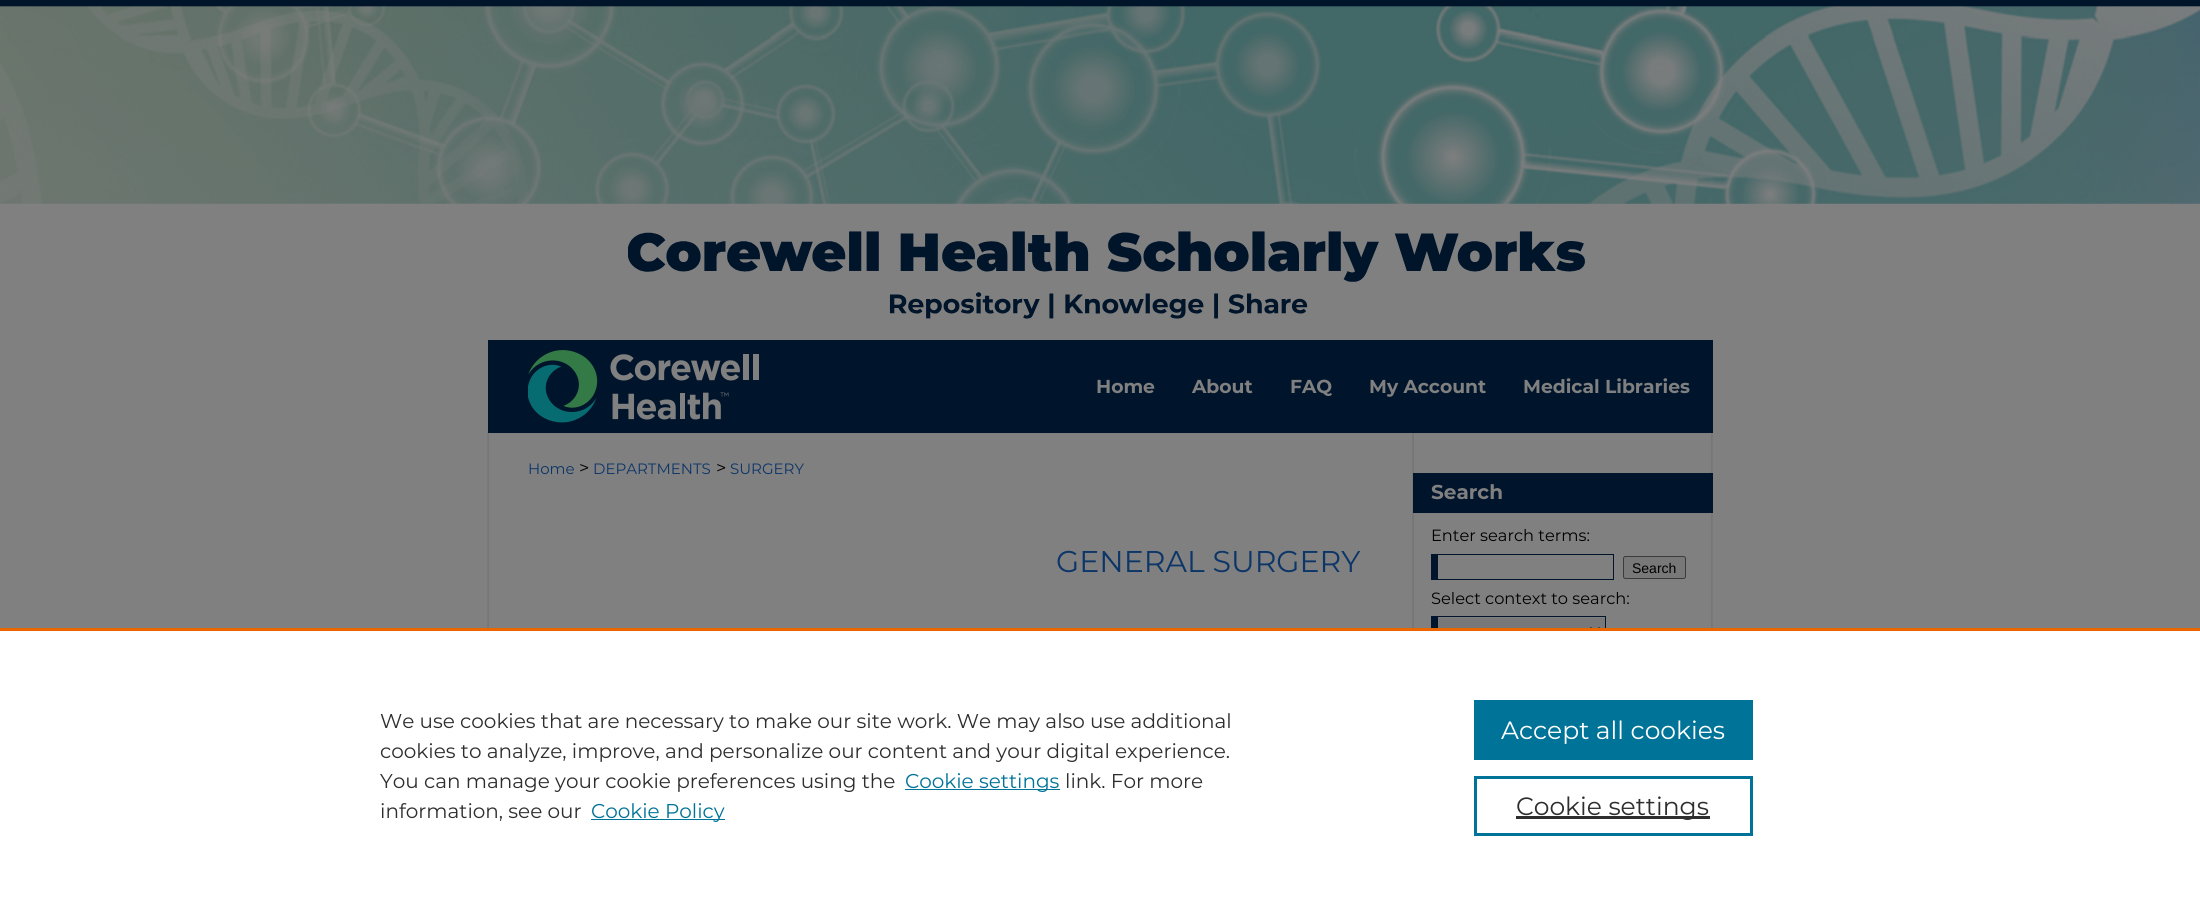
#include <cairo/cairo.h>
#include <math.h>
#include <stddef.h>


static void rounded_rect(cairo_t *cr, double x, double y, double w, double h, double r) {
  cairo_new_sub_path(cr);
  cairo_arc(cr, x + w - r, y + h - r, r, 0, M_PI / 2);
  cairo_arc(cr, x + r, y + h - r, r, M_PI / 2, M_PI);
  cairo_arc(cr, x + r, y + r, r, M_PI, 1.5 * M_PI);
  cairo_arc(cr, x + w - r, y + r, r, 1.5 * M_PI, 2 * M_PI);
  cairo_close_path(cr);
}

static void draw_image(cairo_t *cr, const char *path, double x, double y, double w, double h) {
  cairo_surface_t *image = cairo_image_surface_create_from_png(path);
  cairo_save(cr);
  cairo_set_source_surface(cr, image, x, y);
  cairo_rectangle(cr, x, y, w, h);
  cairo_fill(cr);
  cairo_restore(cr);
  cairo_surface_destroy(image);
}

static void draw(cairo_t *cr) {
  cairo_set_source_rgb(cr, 128 / 255.0, 128 / 255.0, 128 / 255.0);
  cairo_paint(cr);
  draw_image(cr, "images/1.png", 0, 0, 2200, 204);
  draw_image(cr, "images/2.png", 628, 231, 957, 88);
  draw_image(cr, "images/4.png", 487, 432, 1226, 196);
  cairo_set_source_rgb(cr, 0, 20 / 255.0, 43 / 255.0);
  cairo_rectangle(cr, 488, 340, 1225, 93);
  cairo_fill(cr);
  draw_image(cr, "images/3.png", 528, 350, 231, 73);
  cairo_rectangle(cr, 1413, 473, 300, 40);
  cairo_fill(cr);
  cairo_rectangle(cr, 1431, 554, 183, 1);
  cairo_fill(cr);
  cairo_rectangle(cr, 1613, 554, 1, 26);
  cairo_fill(cr);
  cairo_rectangle(cr, 1431, 579, 183, 1);
  cairo_fill(cr);
  cairo_rectangle(cr, 1431, 554, 7, 26);
  cairo_fill(cr);
  cairo_set_source_rgb(cr, 120 / 255.0, 120 / 255.0, 120 / 255.0);
  rounded_rect(cr, 1623.5, 556.5, 62, 22, 2);
  cairo_fill_preserve(cr);
  cairo_set_source_rgb(cr, 59 / 255.0, 59 / 255.0, 59 / 255.0);
  cairo_set_line_width(cr, 1);
  cairo_stroke(cr);
  cairo_set_source_rgb(cr, 120 / 255.0, 120 / 255.0, 120 / 255.0);
  cairo_rectangle(cr, 1438, 618, 167, 10);
  cairo_fill(cr);
  cairo_set_source_rgb(cr, 0, 20 / 255.0, 43 / 255.0);
  cairo_rectangle(cr, 1431, 616, 175, 1);
  cairo_fill(cr);
  cairo_rectangle(cr, 1605, 616, 1, 12);
  cairo_fill(cr);
  cairo_rectangle(cr, 1431, 616, 7, 12);
  cairo_fill(cr);
  cairo_new_path(cr);
  cairo_move_to(cr, 1590, 628);
  cairo_line_to(cr, 1595, 633);
  cairo_line_to(cr, 1600, 628);
  cairo_set_source_rgb(cr, 0, 0, 0);
  cairo_set_line_width(cr, 2.5);
  cairo_stroke(cr);
  cairo_set_source_rgb(cr, 1, 1, 1);
  cairo_rectangle(cr, 0, 631, 2200, 271);
  cairo_fill(cr);
  cairo_set_source_rgb(cr, 235 / 255.0, 101 / 255.0, 0);
  cairo_rectangle(cr, 0, 628, 2200, 3);
  cairo_fill(cr);
  cairo_set_source_rgb(cr, 0, 115 / 255.0, 152 / 255.0);
  cairo_rectangle(cr, 905, 789, 155, 1);
  cairo_fill(cr);
  cairo_rectangle(cr, 591, 819, 134, 1);
  cairo_fill(cr);
  cairo_rectangle(cr, 1474, 700, 279, 60);
  cairo_fill(cr);
  cairo_rectangle(cr, 1475.5, 777.5, 276, 57);
  cairo_set_line_width(cr, 3);
  cairo_stroke(cr);
  cairo_set_source_rgb(cr, 46 / 255.0, 46 / 255.0, 46 / 255.0);
  cairo_rectangle(cr, 1516, 816, 194, 3);
  cairo_fill(cr);
  cairo_select_font_face(cr, "Montserrat", CAIRO_FONT_SLANT_NORMAL, CAIRO_FONT_WEIGHT_BOLD);
  cairo_set_font_size(cr, 18.75);
  cairo_set_source_rgb(cr, 128 / 255.0, 128 / 255.0, 128 / 255.0);
  cairo_move_to(cr, 1096, 393);
  cairo_show_text(cr, "Home");
  cairo_move_to(cr, 1192, 393);
  cairo_show_text(cr, "About");
  cairo_move_to(cr, 1290, 393);
  cairo_show_text(cr, "FAQ");
  cairo_move_to(cr, 1369, 393);
  cairo_show_text(cr, "My Account");
  cairo_move_to(cr, 1523, 393);
  cairo_show_text(cr, "Medical Libraries");
  cairo_select_font_face(cr, "Montserrat", CAIRO_FONT_SLANT_NORMAL, CAIRO_FONT_WEIGHT_NORMAL);
  cairo_set_font_size(cr, 15);
  cairo_set_source_rgb(cr, 12 / 255.0, 53 / 255.0, 104 / 255.0);
  cairo_move_to(cr, 528, 474);
  cairo_show_text(cr, "Home");
  cairo_set_font_size(cr, 18);
  cairo_set_source_rgb(cr, 0, 0, 0);
  cairo_move_to(cr, 579, 474);
  cairo_show_text(cr, ">");
  cairo_set_font_size(cr, 15);
  cairo_set_source_rgb(cr, 12 / 255.0, 53 / 255.0, 104 / 255.0);
  cairo_move_to(cr, 593, 474);
  cairo_show_text(cr, "DEPARTMENTS");
  cairo_set_font_size(cr, 18);
  cairo_set_source_rgb(cr, 0, 0, 0);
  cairo_move_to(cr, 716, 474);
  cairo_show_text(cr, ">");
  cairo_set_font_size(cr, 15);
  cairo_set_source_rgb(cr, 12 / 255.0, 53 / 255.0, 104 / 255.0);
  cairo_move_to(cr, 730, 474);
  cairo_show_text(cr, "SURGERY");
  cairo_set_font_size(cr, 30);
  cairo_move_to(cr, 1056, 572);
  cairo_show_text(cr, "GENERAL SURGERY");
  cairo_select_font_face(cr, "Montserrat", CAIRO_FONT_SLANT_NORMAL, CAIRO_FONT_WEIGHT_BOLD);
  cairo_set_font_size(cr, 20);
  cairo_set_source_rgb(cr, 128 / 255.0, 128 / 255.0, 128 / 255.0);
  cairo_move_to(cr, 1431, 499);
  cairo_show_text(cr, "Search");
  cairo_select_font_face(cr, "Montserrat", CAIRO_FONT_SLANT_NORMAL, CAIRO_FONT_WEIGHT_NORMAL);
  cairo_set_font_size(cr, 16.25);
  cairo_set_source_rgb(cr, 0, 0, 0);
  cairo_move_to(cr, 1431, 541);
  cairo_show_text(cr, "Enter search terms:");
  cairo_select_font_face(cr, "Liberation Sans", CAIRO_FONT_SLANT_NORMAL, CAIRO_FONT_WEIGHT_NORMAL);
  cairo_set_font_size(cr, 14);
  cairo_move_to(cr, 1632, 573);
  cairo_show_text(cr, "Search");
  cairo_select_font_face(cr, "Montserrat", CAIRO_FONT_SLANT_NORMAL, CAIRO_FONT_WEIGHT_NORMAL);
  cairo_set_font_size(cr, 16.25);
  cairo_move_to(cr, 1431, 604);
  cairo_show_text(cr, "Select context to search:");
  cairo_set_font_size(cr, 20);
  cairo_set_source_rgb(cr, 46 / 255.0, 46 / 255.0, 46 / 255.0);
  cairo_move_to(cr, 380, 728);
  cairo_show_text(cr, "We use cookies that are necessary to make our site work. We may also use additional");
  cairo_move_to(cr, 380, 758);
  cairo_show_text(cr, "cookies to analyze, improve, and personalize our content and your digital experience.");
  cairo_move_to(cr, 380, 788);
  cairo_show_text(cr, "You can manage your cookie preferences using the");
  cairo_set_source_rgb(cr, 0, 115 / 255.0, 152 / 255.0);
  cairo_move_to(cr, 905, 788);
  cairo_show_text(cr, "Cookie settings");
  cairo_set_source_rgb(cr, 46 / 255.0, 46 / 255.0, 46 / 255.0);
  cairo_move_to(cr, 1065, 788);
  cairo_show_text(cr, "link. For more");
  cairo_move_to(cr, 380, 818);
  cairo_show_text(cr, "information, see our");
  cairo_set_source_rgb(cr, 0, 115 / 255.0, 152 / 255.0);
  cairo_move_to(cr, 591, 818);
  cairo_show_text(cr, "Cookie Policy");
  cairo_set_font_size(cr, 25);
  cairo_set_source_rgb(cr, 1, 1, 1);
  cairo_move_to(cr, 1501, 739);
  cairo_show_text(cr, "Accept all cookies");
  cairo_set_source_rgb(cr, 46 / 255.0, 46 / 255.0, 46 / 255.0);
  cairo_move_to(cr, 1516, 815);
  cairo_show_text(cr, "Cookie settings");
}

int main(void) {
  cairo_surface_t *surface = cairo_image_surface_create(CAIRO_FORMAT_RGB24, 2200, 902);
  cairo_t *cr = cairo_create(surface);
  cairo_font_options_t *options = cairo_font_options_create();
  cairo_font_options_set_hint_metrics(options, CAIRO_HINT_METRICS_OFF);
  cairo_font_options_set_hint_style(options, CAIRO_HINT_STYLE_NONE);
  cairo_set_font_options(cr, options);
  cairo_set_miter_limit(cr, 4);
  draw(cr);
  cairo_surface_write_to_png(surface, "out.png");
  cairo_font_options_destroy(options);
  cairo_destroy(cr);
  cairo_surface_destroy(surface);
  return 0;
}
